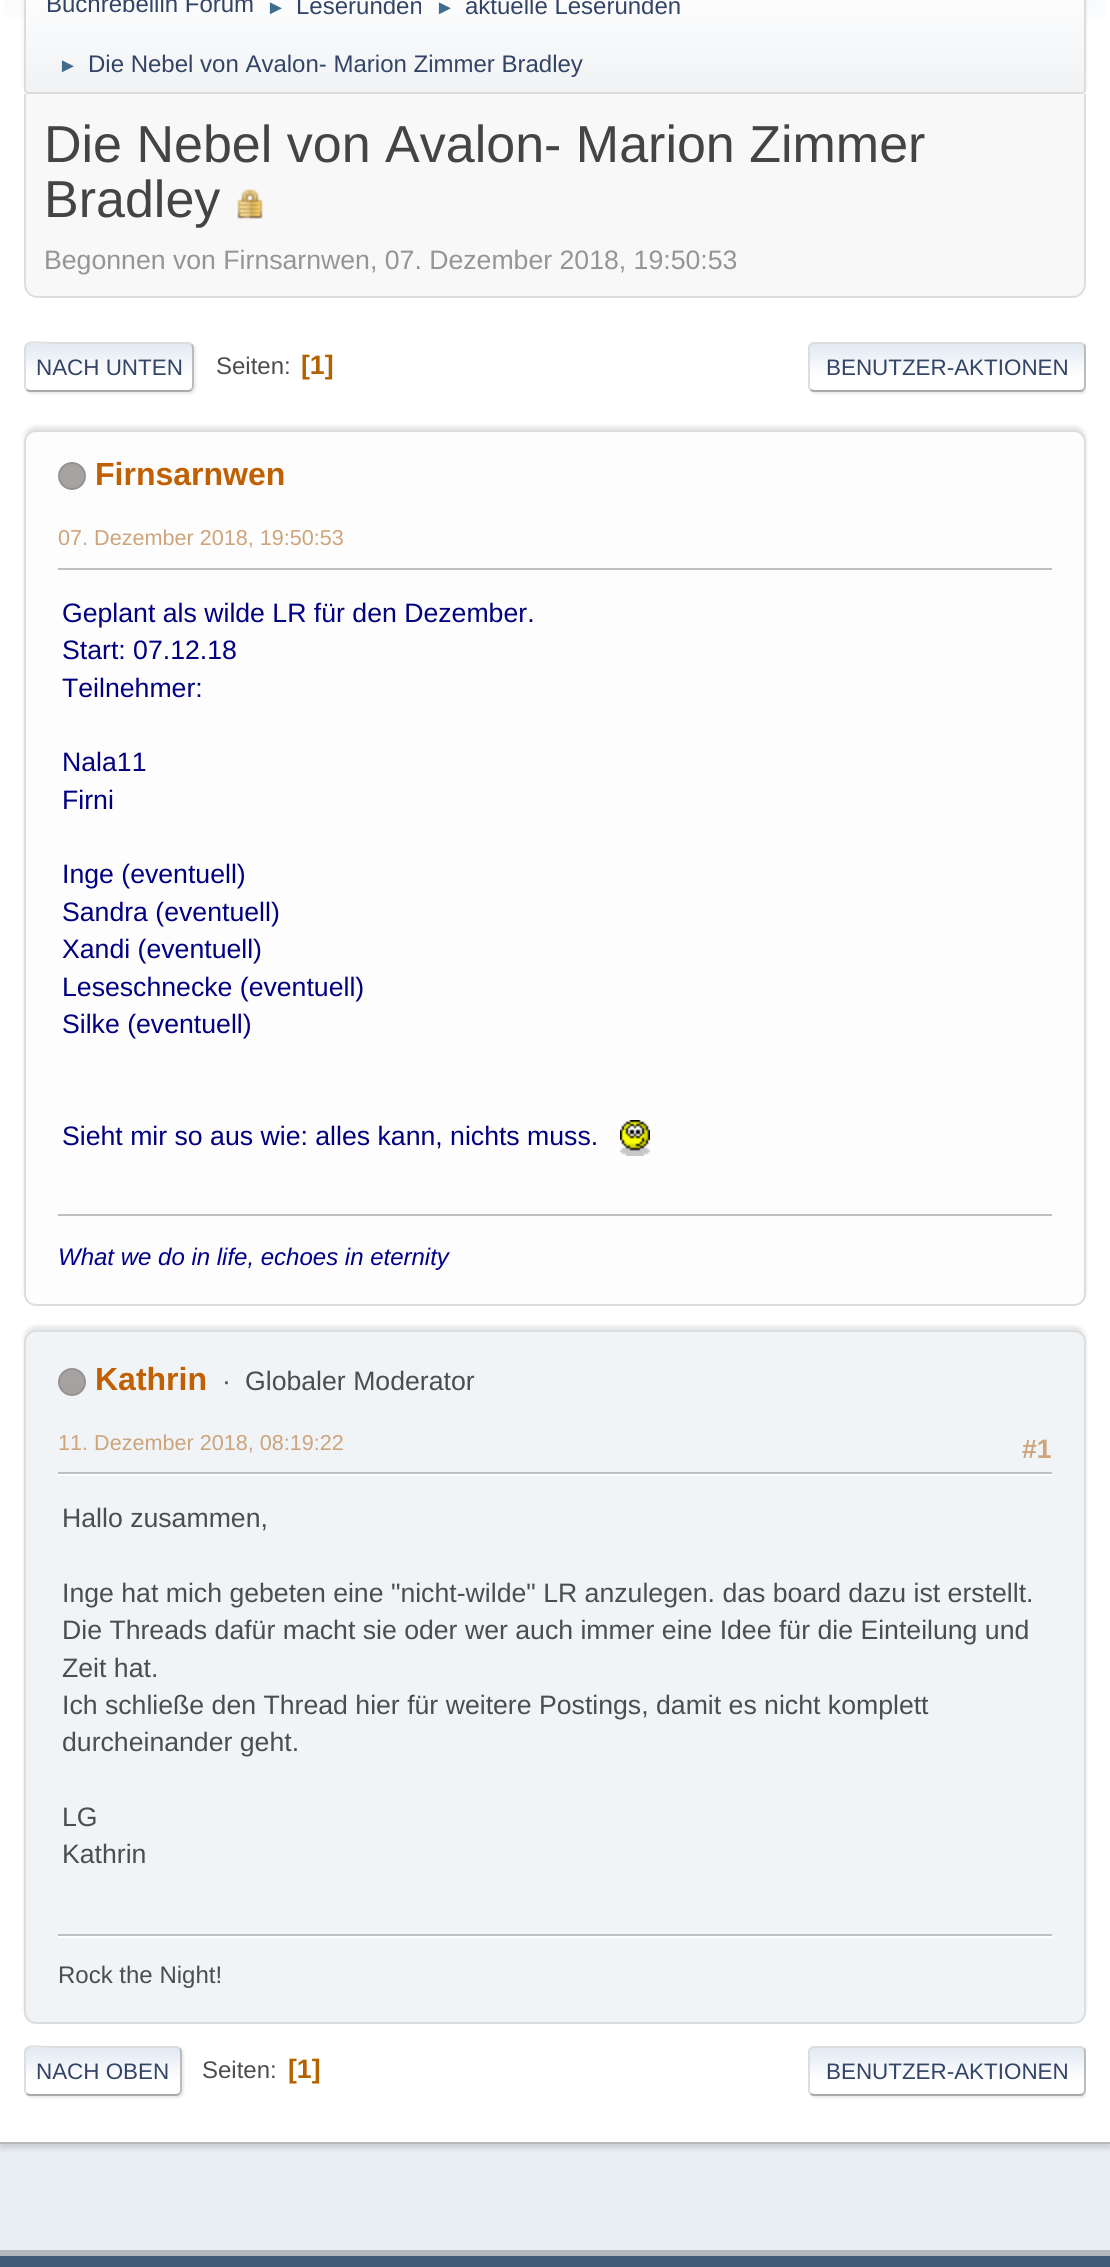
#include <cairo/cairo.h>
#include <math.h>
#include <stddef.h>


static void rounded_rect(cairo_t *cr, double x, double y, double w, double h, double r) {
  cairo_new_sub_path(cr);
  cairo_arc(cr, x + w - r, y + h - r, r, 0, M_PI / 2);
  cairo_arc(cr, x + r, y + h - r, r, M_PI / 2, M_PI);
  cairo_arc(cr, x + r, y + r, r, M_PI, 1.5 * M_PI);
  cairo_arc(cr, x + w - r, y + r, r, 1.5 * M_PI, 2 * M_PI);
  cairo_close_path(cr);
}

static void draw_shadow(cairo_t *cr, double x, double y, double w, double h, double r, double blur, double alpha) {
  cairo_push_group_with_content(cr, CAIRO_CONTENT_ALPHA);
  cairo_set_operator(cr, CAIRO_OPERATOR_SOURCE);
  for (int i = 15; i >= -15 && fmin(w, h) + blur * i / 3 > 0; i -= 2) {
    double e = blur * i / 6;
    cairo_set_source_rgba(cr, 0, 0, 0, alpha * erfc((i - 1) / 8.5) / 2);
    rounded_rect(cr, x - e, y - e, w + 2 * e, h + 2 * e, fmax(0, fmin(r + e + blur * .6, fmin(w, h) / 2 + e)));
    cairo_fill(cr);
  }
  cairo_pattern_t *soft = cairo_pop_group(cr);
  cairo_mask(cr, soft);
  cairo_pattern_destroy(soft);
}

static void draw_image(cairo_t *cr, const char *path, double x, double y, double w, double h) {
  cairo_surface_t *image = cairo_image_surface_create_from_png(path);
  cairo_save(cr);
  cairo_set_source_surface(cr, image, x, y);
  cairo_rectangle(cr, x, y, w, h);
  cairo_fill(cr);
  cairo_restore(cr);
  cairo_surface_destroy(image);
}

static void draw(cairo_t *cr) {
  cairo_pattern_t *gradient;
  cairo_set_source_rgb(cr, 233 / 255.0, 238 / 255.0, 242 / 255.0);
  cairo_paint(cr);
  cairo_set_source_rgb(cr, 0, 0, 0);
  draw_shadow(cr, 0, -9, 1110, 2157, 0, 3, 0.14);
  cairo_set_source_rgb(cr, 1, 1, 1);
  cairo_rectangle(cr, 0, 0, 1110, 2142);
  cairo_fill(cr);
  cairo_set_source_rgb(cr, 184 / 255.0, 184 / 255.0, 184 / 255.0);
  cairo_rectangle(cr, 0, 2142, 1110, 2);
  cairo_fill(cr);
  gradient = cairo_pattern_create_linear(555, -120, 555, 98);
  cairo_pattern_add_color_stop_rgba(gradient, 0, 226 / 255.0, 233 / 255.0, 243 / 255.0, 1);
  cairo_pattern_add_color_stop_rgba(gradient, 0.7, 1, 1, 1, 1);
  cairo_set_source(cr, gradient);
  cairo_pattern_destroy(gradient);
  cairo_rectangle(cr, 4, 0, 1102, 19);
  cairo_fill(cr);
  cairo_set_source_rgb(cr, 0, 0, 0);
  draw_shadow(cr, 24, -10, 1062, 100, 4, 2, 0.08);
  gradient = cairo_pattern_create_linear(555, -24, 555, 92);
  cairo_pattern_add_color_stop_rgba(gradient, 0, 1, 1, 1, 1);
  cairo_pattern_add_color_stop_rgba(gradient, 0.95, 241 / 255.0, 243 / 255.0, 245 / 255.0, 1);
  cairo_set_source(cr, gradient);
  cairo_pattern_destroy(gradient);
  cairo_rectangle(cr, 24, 0, 1062, 92);
  cairo_fill(cr);
  rounded_rect(cr, 25, -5, 1060, 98, 3);
  cairo_set_source_rgb(cr, 221 / 255.0, 221 / 255.0, 221 / 255.0);
  cairo_stroke(cr);
  cairo_set_source_rgb(cr, 248 / 255.0, 248 / 255.0, 248 / 255.0);
  cairo_new_path(cr);
  cairo_move_to(cr, 24, 94);
  cairo_line_to(cr, 1086, 94);
  cairo_line_to(cr, 1086, 284);
  cairo_curve_to(cr, 1086, 291.5, 1079.5, 298, 1072, 298);
  cairo_line_to(cr, 38, 298);
  cairo_curve_to(cr, 30.5, 298, 24, 291.5, 24, 284);
  cairo_close_path(cr);
  cairo_fill(cr);
  cairo_set_source_rgb(cr, 221 / 255.0, 221 / 255.0, 221 / 255.0);
  cairo_set_fill_rule(cr, CAIRO_FILL_RULE_EVEN_ODD);
  cairo_new_path(cr);
  cairo_move_to(cr, 24, 94);
  cairo_line_to(cr, 1086, 94);
  cairo_line_to(cr, 1086, 284);
  cairo_curve_to(cr, 1086, 292, 1080, 298, 1072, 298);
  cairo_line_to(cr, 38, 298);
  cairo_curve_to(cr, 30, 298, 24, 292, 24, 284);
  cairo_close_path(cr);
  cairo_move_to(cr, 26, 94);
  cairo_line_to(cr, 1084, 94);
  cairo_line_to(cr, 1084, 284);
  cairo_curve_to(cr, 1084, 291, 1079, 296, 1072, 296);
  cairo_line_to(cr, 38, 296);
  cairo_curve_to(cr, 31, 296, 26, 291, 26, 284);
  cairo_close_path(cr);
  cairo_fill(cr);
  draw_image(cr, "images/1.png", 237, 189, 26, 30);
  cairo_set_source_rgb(cr, 221 / 255.0, 221 / 255.0, 221 / 255.0);
  draw_shadow(cr, 26, 344, 170, 50, 6, 1, 0.57);
  cairo_set_source_rgb(cr, 1, 1, 1);
  rounded_rect(cr, 24, 342, 170, 50, 6);
  cairo_fill(cr);
  cairo_save(cr);
  cairo_set_fill_rule(cr, CAIRO_FILL_RULE_WINDING);
  rounded_rect(cr, 24, 342, 170, 50, 6);
  cairo_clip(cr);
  gradient = cairo_pattern_create_linear(109, 344, 109, 390);
  cairo_pattern_add_color_stop_rgba(gradient, 0, 226 / 255.0, 233 / 255.0, 243 / 255.0, 1);
  cairo_pattern_add_color_stop_rgba(gradient, 0.7, 1, 1, 1, 1);
  cairo_set_source(cr, gradient);
  cairo_pattern_destroy(gradient);
  cairo_rectangle(cr, 24, 344, 170, 46);
  cairo_fill(cr);
  cairo_restore(cr);
  cairo_new_path(cr);
  cairo_move_to(cr, 191.5, 344.5);
  cairo_curve_to(cr, 192.5, 345.5, 193, 346.5, 193, 348);
  cairo_line_to(cr, 193, 386);
  cairo_curve_to(cr, 193, 387.5, 192.5, 388.5, 191.5, 389.5);
  cairo_set_source_rgb(cr, 187 / 255.0, 187 / 255.0, 187 / 255.0);
  cairo_stroke(cr);
  cairo_new_path(cr);
  cairo_move_to(cr, 191.5, 389.5);
  cairo_curve_to(cr, 190.5, 390.5, 189.5, 391, 188, 391);
  cairo_line_to(cr, 30, 391);
  cairo_curve_to(cr, 28.5, 391, 27.5, 390.5, 26.5, 389.5);
  cairo_set_source_rgb(cr, 170 / 255.0, 170 / 255.0, 170 / 255.0);
  cairo_stroke(cr);
  cairo_save(cr);
  cairo_set_fill_rule(cr, CAIRO_FILL_RULE_WINDING);
  cairo_rectangle(cr, 24, 328, 1062, 78);
  cairo_clip(cr);
  cairo_new_path(cr);
  cairo_move_to(cr, 26.5, 389.5);
  cairo_curve_to(cr, 24, 387, 25, 382.5, 25, 379.5);
  cairo_line_to(cr, 25, 367);
  cairo_curve_to(cr, 25, 336.5, 21.5, 343, 56.5, 343);
  cairo_line_to(cr, 188, 343);
  cairo_curve_to(cr, 189.5, 343, 190.5, 343.5, 191.5, 344.5);
  cairo_set_source_rgb(cr, 221 / 255.0, 221 / 255.0, 221 / 255.0);
  cairo_stroke(cr);
  cairo_restore(cr);
  cairo_save(cr);
  cairo_set_fill_rule(cr, CAIRO_FILL_RULE_WINDING);
  cairo_rectangle(cr, 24, 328, 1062, 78);
  cairo_clip(cr);
  cairo_set_source_rgb(cr, 221 / 255.0, 221 / 255.0, 221 / 255.0);
  draw_shadow(cr, 810, 344, 278, 50, 6, 1, 0.57);
  cairo_restore(cr);
  cairo_save(cr);
  cairo_set_fill_rule(cr, CAIRO_FILL_RULE_WINDING);
  rounded_rect(cr, 808, 342, 278, 50, 6);
  cairo_clip(cr);
  gradient = cairo_pattern_create_linear(947, 344, 947, 390);
  cairo_pattern_add_color_stop_rgba(gradient, 0, 226 / 255.0, 233 / 255.0, 243 / 255.0, 1);
  cairo_pattern_add_color_stop_rgba(gradient, 0.7, 1, 1, 1, 1);
  cairo_set_source(cr, gradient);
  cairo_pattern_destroy(gradient);
  cairo_rectangle(cr, 808, 344, 278, 46);
  cairo_fill(cr);
  cairo_restore(cr);
  cairo_new_path(cr);
  cairo_move_to(cr, 1083.5, 344.5);
  cairo_curve_to(cr, 1084.5, 345.5, 1085, 346.5, 1085, 348);
  cairo_line_to(cr, 1085, 386);
  cairo_curve_to(cr, 1085, 387.5, 1084.5, 388.5, 1083.5, 389.5);
  cairo_set_source_rgb(cr, 187 / 255.0, 187 / 255.0, 187 / 255.0);
  cairo_stroke(cr);
  cairo_new_path(cr);
  cairo_move_to(cr, 1083.5, 389.5);
  cairo_curve_to(cr, 1082.5, 390.5, 1081.5, 391, 1080, 391);
  cairo_line_to(cr, 814, 391);
  cairo_curve_to(cr, 812.5, 391, 811.5, 390.5, 810.5, 389.5);
  cairo_set_source_rgb(cr, 170 / 255.0, 170 / 255.0, 170 / 255.0);
  cairo_stroke(cr);
  cairo_new_path(cr);
  cairo_move_to(cr, 810.5, 389.5);
  cairo_curve_to(cr, 809.5, 388.5, 809, 387.5, 809, 386);
  cairo_line_to(cr, 809, 348);
  cairo_curve_to(cr, 809, 346.5, 809.5, 345.5, 810.5, 344.5);
  cairo_curve_to(cr, 811.5, 343.5, 812.5, 343, 814, 343);
  cairo_line_to(cr, 1080, 343);
  cairo_curve_to(cr, 1081.5, 343, 1082.5, 343.5, 1083.5, 344.5);
  cairo_set_source_rgb(cr, 221 / 255.0, 221 / 255.0, 221 / 255.0);
  cairo_stroke(cr);
  cairo_set_source_rgb(cr, 0, 0, 0);
  draw_shadow(cr, 24, 426, 1062, 876, 12, 2, 0.1);
  cairo_set_source_rgb(cr, 253 / 255.0, 253 / 255.0, 253 / 255.0);
  rounded_rect(cr, 25, 431, 1060, 874, 11);
  cairo_fill_preserve(cr);
  cairo_set_source_rgb(cr, 221 / 255.0, 221 / 255.0, 221 / 255.0);
  cairo_stroke(cr);
  cairo_set_source_rgb(cr, 167 / 255.0, 162 / 255.0, 162 / 255.0);
  cairo_arc(cr, 72, 476, 13, 0, 2 * M_PI);
  cairo_fill_preserve(cr);
  cairo_set_source_rgb(cr, 150 / 255.0, 146 / 255.0, 146 / 255.0);
  cairo_stroke(cr);
  cairo_set_source_rgb(cr, 191 / 255.0, 191 / 255.0, 191 / 255.0);
  cairo_rectangle(cr, 58, 568, 994, 2);
  cairo_fill(cr);
  draw_image(cr, "images/2.png", 620, 1120, 30, 36);
  cairo_rectangle(cr, 58, 1214, 994, 2);
  cairo_fill(cr);
  cairo_set_source_rgb(cr, 0, 0, 0);
  draw_shadow(cr, 24, 1326, 1062, 694, 12, 2, 0.1);
  cairo_set_source_rgb(cr, 240 / 255.0, 244 / 255.0, 247 / 255.0);
  rounded_rect(cr, 25, 1331, 1060, 692, 11);
  cairo_fill_preserve(cr);
  cairo_set_source_rgb(cr, 221 / 255.0, 221 / 255.0, 221 / 255.0);
  cairo_stroke(cr);
  cairo_set_source_rgb(cr, 167 / 255.0, 162 / 255.0, 162 / 255.0);
  cairo_arc(cr, 72, 1382, 13, 0, 2 * M_PI);
  cairo_fill_preserve(cr);
  cairo_set_source_rgb(cr, 150 / 255.0, 146 / 255.0, 146 / 255.0);
  cairo_stroke(cr);
  cairo_set_source_rgb(cr, 1, 1, 1);
  cairo_rectangle(cr, 58, 1474, 994, 2);
  cairo_fill(cr);
  cairo_set_source_rgb(cr, 191 / 255.0, 191 / 255.0, 191 / 255.0);
  cairo_rectangle(cr, 58, 1472, 994, 2);
  cairo_fill(cr);
  cairo_set_source_rgb(cr, 1, 1, 1);
  cairo_rectangle(cr, 58, 1936, 994, 2);
  cairo_fill(cr);
  cairo_set_source_rgb(cr, 191 / 255.0, 191 / 255.0, 191 / 255.0);
  cairo_rectangle(cr, 58, 1934, 994, 2);
  cairo_fill(cr);
  cairo_set_source_rgb(cr, 221 / 255.0, 221 / 255.0, 221 / 255.0);
  draw_shadow(cr, 26, 2048, 158, 50, 6, 1, 0.57);
  cairo_set_source_rgb(cr, 1, 1, 1);
  rounded_rect(cr, 24, 2046, 158, 50, 6);
  cairo_fill(cr);
  cairo_save(cr);
  cairo_set_fill_rule(cr, CAIRO_FILL_RULE_WINDING);
  rounded_rect(cr, 24, 2046, 158, 50, 6);
  cairo_clip(cr);
  gradient = cairo_pattern_create_linear(103, 2048, 103, 2094);
  cairo_pattern_add_color_stop_rgba(gradient, 0, 226 / 255.0, 233 / 255.0, 243 / 255.0, 1);
  cairo_pattern_add_color_stop_rgba(gradient, 0.7, 1, 1, 1, 1);
  cairo_set_source(cr, gradient);
  cairo_pattern_destroy(gradient);
  cairo_rectangle(cr, 24, 2048, 158, 46);
  cairo_fill(cr);
  cairo_restore(cr);
  cairo_new_path(cr);
  cairo_move_to(cr, 179.5, 2048.5);
  cairo_curve_to(cr, 180.5, 2049.5, 181, 2050.5, 181, 2052);
  cairo_line_to(cr, 181, 2090);
  cairo_curve_to(cr, 181, 2091.5, 180.5, 2092.5, 179.5, 2093.5);
  cairo_set_source_rgb(cr, 187 / 255.0, 187 / 255.0, 187 / 255.0);
  cairo_stroke(cr);
  cairo_new_path(cr);
  cairo_move_to(cr, 179.5, 2093.5);
  cairo_curve_to(cr, 178.5, 2094.5, 177.5, 2095, 176, 2095);
  cairo_line_to(cr, 30, 2095);
  cairo_curve_to(cr, 28.5, 2095, 27.5, 2094.5, 26.5, 2093.5);
  cairo_set_source_rgb(cr, 170 / 255.0, 170 / 255.0, 170 / 255.0);
  cairo_stroke(cr);
  cairo_save(cr);
  cairo_set_fill_rule(cr, CAIRO_FILL_RULE_WINDING);
  cairo_rectangle(cr, 24, 2032, 1062, 78);
  cairo_clip(cr);
  cairo_new_path(cr);
  cairo_move_to(cr, 26.5, 2093.5);
  cairo_curve_to(cr, 24, 2091, 25, 2086.5, 25, 2083.5);
  cairo_line_to(cr, 25, 2071);
  cairo_curve_to(cr, 25, 2041, 21, 2047, 54.5, 2047);
  cairo_line_to(cr, 176, 2047);
  cairo_curve_to(cr, 177.5, 2047, 178.5, 2047.5, 179.5, 2048.5);
  cairo_set_source_rgb(cr, 221 / 255.0, 221 / 255.0, 221 / 255.0);
  cairo_stroke(cr);
  cairo_restore(cr);
  cairo_save(cr);
  cairo_set_fill_rule(cr, CAIRO_FILL_RULE_WINDING);
  cairo_rectangle(cr, 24, 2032, 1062, 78);
  cairo_clip(cr);
  cairo_set_source_rgb(cr, 221 / 255.0, 221 / 255.0, 221 / 255.0);
  draw_shadow(cr, 810, 2048, 278, 50, 6, 1, 0.57);
  cairo_restore(cr);
  cairo_save(cr);
  cairo_set_fill_rule(cr, CAIRO_FILL_RULE_WINDING);
  rounded_rect(cr, 808, 2046, 278, 50, 6);
  cairo_clip(cr);
  gradient = cairo_pattern_create_linear(947, 2048, 947, 2094);
  cairo_pattern_add_color_stop_rgba(gradient, 0, 226 / 255.0, 233 / 255.0, 243 / 255.0, 1);
  cairo_pattern_add_color_stop_rgba(gradient, 0.7, 1, 1, 1, 1);
  cairo_set_source(cr, gradient);
  cairo_pattern_destroy(gradient);
  cairo_rectangle(cr, 808, 2048, 278, 46);
  cairo_fill(cr);
  cairo_restore(cr);
  cairo_new_path(cr);
  cairo_move_to(cr, 1083.5, 2048.5);
  cairo_curve_to(cr, 1084.5, 2049.5, 1085, 2050.5, 1085, 2052);
  cairo_line_to(cr, 1085, 2090);
  cairo_curve_to(cr, 1085, 2091.5, 1084.5, 2092.5, 1083.5, 2093.5);
  cairo_set_source_rgb(cr, 187 / 255.0, 187 / 255.0, 187 / 255.0);
  cairo_stroke(cr);
  cairo_new_path(cr);
  cairo_move_to(cr, 1083.5, 2093.5);
  cairo_curve_to(cr, 1082.5, 2094.5, 1081.5, 2095, 1080, 2095);
  cairo_line_to(cr, 814, 2095);
  cairo_curve_to(cr, 812.5, 2095, 811.5, 2094.5, 810.5, 2093.5);
  cairo_set_source_rgb(cr, 170 / 255.0, 170 / 255.0, 170 / 255.0);
  cairo_stroke(cr);
  cairo_new_path(cr);
  cairo_move_to(cr, 810.5, 2093.5);
  cairo_curve_to(cr, 809.5, 2092.5, 809, 2091.5, 809, 2090);
  cairo_line_to(cr, 809, 2052);
  cairo_curve_to(cr, 809, 2050.5, 809.5, 2049.5, 810.5, 2048.5);
  cairo_curve_to(cr, 811.5, 2047.5, 812.5, 2047, 814, 2047);
  cairo_line_to(cr, 1080, 2047);
  cairo_curve_to(cr, 1081.5, 2047, 1082.5, 2047.5, 1083.5, 2048.5);
  cairo_set_source_rgb(cr, 221 / 255.0, 221 / 255.0, 221 / 255.0);
  cairo_stroke(cr);
  cairo_set_source_rgb(cr, 62 / 255.0, 90 / 255.0, 120 / 255.0);
  cairo_rectangle(cr, 0, 2256, 1110, 11);
  cairo_fill(cr);
  cairo_set_source_rgb(cr, 178 / 255.0, 182 / 255.0, 189 / 255.0);
  cairo_rectangle(cr, 0, 2250, 1110, 6);
  cairo_fill(cr);
  cairo_select_font_face(cr, "Liberation Sans", CAIRO_FONT_SLANT_NORMAL, CAIRO_FONT_WEIGHT_NORMAL);
  cairo_set_font_size(cr, 24);
  cairo_set_source_rgb(cr, 51 / 255.0, 68 / 255.0, 102 / 255.0);
  cairo_move_to(cr, 46, 12);
  cairo_show_text(cr, "Buchrebellin Forum");
  cairo_set_font_size(cr, 20);
  cairo_set_source_rgb(cr, 63 / 255.0, 107 / 255.0, 140 / 255.0);
  cairo_move_to(cr, 266, 14);
  cairo_show_text(cr, "►");
  cairo_set_font_size(cr, 24);
  cairo_set_source_rgb(cr, 51 / 255.0, 68 / 255.0, 102 / 255.0);
  cairo_move_to(cr, 296, 14);
  cairo_show_text(cr, "Leserunden");
  cairo_set_font_size(cr, 20);
  cairo_set_source_rgb(cr, 63 / 255.0, 107 / 255.0, 140 / 255.0);
  cairo_move_to(cr, 435, 14);
  cairo_show_text(cr, "►");
  cairo_set_font_size(cr, 24);
  cairo_set_source_rgb(cr, 51 / 255.0, 68 / 255.0, 102 / 255.0);
  cairo_move_to(cr, 465, 14);
  cairo_show_text(cr, "aktuelle Leserunden");
  cairo_set_font_size(cr, 20);
  cairo_set_source_rgb(cr, 63 / 255.0, 107 / 255.0, 140 / 255.0);
  cairo_move_to(cr, 58, 72);
  cairo_show_text(cr, "►");
  cairo_set_font_size(cr, 24);
  cairo_set_source_rgb(cr, 51 / 255.0, 68 / 255.0, 102 / 255.0);
  cairo_move_to(cr, 88, 72);
  cairo_show_text(cr, "Die Nebel von Avalon- Marion Zimmer Bradley");
  cairo_set_font_size(cr, 52);
  cairo_set_source_rgb(cr, 68 / 255.0, 68 / 255.0, 68 / 255.0);
  cairo_move_to(cr, 44, 162);
  cairo_show_text(cr, "Die Nebel von Avalon- Marion Zimmer");
  cairo_move_to(cr, 44, 217);
  cairo_show_text(cr, "Bradley");
  cairo_set_font_size(cr, 26.65);
  cairo_set_source_rgb(cr, 149 / 255.0, 149 / 255.0, 149 / 255.0);
  cairo_move_to(cr, 44, 269);
  cairo_show_text(cr, "Begonnen von Firnsarnwen, 07. Dezember 2018, 19:50:53");
  cairo_set_font_size(cr, 22.4);
  cairo_set_source_rgb(cr, 51 / 255.0, 68 / 255.0, 102 / 255.0);
  cairo_move_to(cr, 36, 375);
  cairo_show_text(cr, "NACH UNTEN");
  cairo_set_font_size(cr, 24);
  cairo_set_source_rgb(cr, 77 / 255.0, 77 / 255.0, 77 / 255.0);
  cairo_move_to(cr, 216, 374);
  cairo_show_text(cr, "Seiten:");
  cairo_select_font_face(cr, "Liberation Sans", CAIRO_FONT_SLANT_NORMAL, CAIRO_FONT_WEIGHT_BOLD);
  cairo_set_font_size(cr, 26.65);
  cairo_set_source_rgb(cr, 180 / 255.0, 97 / 255.0, 0);
  cairo_move_to(cr, 301, 374);
  cairo_show_text(cr, "[1]");
  cairo_select_font_face(cr, "Liberation Sans", CAIRO_FONT_SLANT_NORMAL, CAIRO_FONT_WEIGHT_NORMAL);
  cairo_set_font_size(cr, 22.4);
  cairo_set_source_rgb(cr, 51 / 255.0, 68 / 255.0, 102 / 255.0);
  cairo_move_to(cr, 826, 375);
  cairo_show_text(cr, "BENUTZER-AKTIONEN");
  cairo_select_font_face(cr, "Liberation Sans", CAIRO_FONT_SLANT_NORMAL, CAIRO_FONT_WEIGHT_BOLD);
  cairo_set_font_size(cr, 32);
  cairo_set_source_rgb(cr, 192 / 255.0, 96 / 255.0, 2 / 255.0);
  cairo_move_to(cr, 95, 485);
  cairo_show_text(cr, "Firnsarnwen");
  cairo_select_font_face(cr, "Liberation Sans", CAIRO_FONT_SLANT_NORMAL, CAIRO_FONT_WEIGHT_NORMAL);
  cairo_set_font_size(cr, 21.6);
  cairo_set_source_rgb(cr, 205 / 255.0, 164 / 255.0, 123 / 255.0);
  cairo_move_to(cr, 58, 545);
  cairo_show_text(cr, "07. Dezember 2018, 19:50:53");
  cairo_set_font_size(cr, 26.65);
  cairo_set_source_rgb(cr, 0, 0, 128 / 255.0);
  cairo_move_to(cr, 62, 622);
  cairo_show_text(cr, "Geplant als wilde LR für den Dezember.");
  cairo_move_to(cr, 62, 659);
  cairo_show_text(cr, "Start: 07.12.18");
  cairo_move_to(cr, 62, 697);
  cairo_show_text(cr, "Teilnehmer:");
  cairo_move_to(cr, 62, 771);
  cairo_show_text(cr, "Nala11");
  cairo_move_to(cr, 62, 809);
  cairo_show_text(cr, "Firni");
  cairo_move_to(cr, 62, 883);
  cairo_show_text(cr, "Inge (eventuell)");
  cairo_move_to(cr, 62, 921);
  cairo_show_text(cr, "Sandra (eventuell)");
  cairo_move_to(cr, 62, 958);
  cairo_show_text(cr, "Xandi (eventuell)");
  cairo_move_to(cr, 62, 996);
  cairo_show_text(cr, "Leseschnecke (eventuell)");
  cairo_move_to(cr, 62, 1033);
  cairo_show_text(cr, "Silke (eventuell)");
  cairo_move_to(cr, 62, 1145);
  cairo_show_text(cr, "Sieht mir so aus wie: alles kann, nichts muss.");
  cairo_select_font_face(cr, "Liberation Sans", CAIRO_FONT_SLANT_ITALIC, CAIRO_FONT_WEIGHT_NORMAL);
  cairo_set_font_size(cr, 24);
  cairo_set_source_rgb(cr, 0, 0, 139 / 255.0);
  cairo_move_to(cr, 58, 1265);
  cairo_show_text(cr, "What we do in life, echoes in eternity");
  cairo_select_font_face(cr, "Liberation Sans", CAIRO_FONT_SLANT_NORMAL, CAIRO_FONT_WEIGHT_BOLD);
  cairo_set_font_size(cr, 32);
  cairo_set_source_rgb(cr, 192 / 255.0, 96 / 255.0, 2 / 255.0);
  cairo_move_to(cr, 95, 1390);
  cairo_show_text(cr, "Kathrin");
  cairo_select_font_face(cr, "Liberation Sans", CAIRO_FONT_SLANT_NORMAL, CAIRO_FONT_WEIGHT_NORMAL);
  cairo_set_font_size(cr, 26.65);
  cairo_set_source_rgb(cr, 77 / 255.0, 77 / 255.0, 77 / 255.0);
  cairo_move_to(cr, 222, 1390);
  cairo_show_text(cr, "·");
  cairo_move_to(cr, 245, 1390);
  cairo_show_text(cr, "Globaler Moderator");
  cairo_set_font_size(cr, 21.6);
  cairo_set_source_rgb(cr, 205 / 255.0, 164 / 255.0, 123 / 255.0);
  cairo_move_to(cr, 58, 1450);
  cairo_show_text(cr, "11. Dezember 2018, 08:19:22");
  cairo_select_font_face(cr, "Liberation Sans", CAIRO_FONT_SLANT_NORMAL, CAIRO_FONT_WEIGHT_BOLD);
  cairo_set_font_size(cr, 26.65);
  cairo_move_to(cr, 1022, 1458);
  cairo_show_text(cr, "#1");
  cairo_select_font_face(cr, "Liberation Sans", CAIRO_FONT_SLANT_NORMAL, CAIRO_FONT_WEIGHT_NORMAL);
  cairo_set_source_rgb(cr, 77 / 255.0, 77 / 255.0, 77 / 255.0);
  cairo_move_to(cr, 62, 1527);
  cairo_show_text(cr, "Hallo zusammen,");
  cairo_move_to(cr, 62, 1602);
  cairo_show_text(cr, "Inge hat mich gebeten eine \"nicht-wilde\" LR anzulegen. das board dazu ist erstellt.");
  cairo_move_to(cr, 62, 1639);
  cairo_show_text(cr, "Die Threads dafür macht sie oder wer auch immer eine Idee für die Einteilung und");
  cairo_move_to(cr, 62, 1677);
  cairo_show_text(cr, "Zeit hat.");
  cairo_move_to(cr, 62, 1714);
  cairo_show_text(cr, "Ich schließe den Thread hier für weitere Postings, damit es nicht komplett");
  cairo_move_to(cr, 62, 1751);
  cairo_show_text(cr, "durcheinander geht.");
  cairo_move_to(cr, 62, 1826);
  cairo_show_text(cr, "LG");
  cairo_move_to(cr, 62, 1863);
  cairo_show_text(cr, "Kathrin");
  cairo_set_font_size(cr, 24);
  cairo_move_to(cr, 58, 1983);
  cairo_show_text(cr, "Rock the Night!");
  cairo_set_font_size(cr, 22.4);
  cairo_set_source_rgb(cr, 51 / 255.0, 68 / 255.0, 102 / 255.0);
  cairo_move_to(cr, 36, 2079);
  cairo_show_text(cr, "NACH OBEN");
  cairo_set_font_size(cr, 24);
  cairo_set_source_rgb(cr, 77 / 255.0, 77 / 255.0, 77 / 255.0);
  cairo_move_to(cr, 202, 2078);
  cairo_show_text(cr, "Seiten:");
  cairo_select_font_face(cr, "Liberation Sans", CAIRO_FONT_SLANT_NORMAL, CAIRO_FONT_WEIGHT_BOLD);
  cairo_set_font_size(cr, 26.65);
  cairo_set_source_rgb(cr, 180 / 255.0, 97 / 255.0, 0);
  cairo_move_to(cr, 288, 2078);
  cairo_show_text(cr, "[1]");
  cairo_select_font_face(cr, "Liberation Sans", CAIRO_FONT_SLANT_NORMAL, CAIRO_FONT_WEIGHT_NORMAL);
  cairo_set_font_size(cr, 22.4);
  cairo_set_source_rgb(cr, 51 / 255.0, 68 / 255.0, 102 / 255.0);
  cairo_move_to(cr, 826, 2079);
  cairo_show_text(cr, "BENUTZER-AKTIONEN");
}

int main(void) {
  cairo_surface_t *surface = cairo_image_surface_create(CAIRO_FORMAT_RGB24, 1110, 2267);
  cairo_t *cr = cairo_create(surface);
  cairo_font_options_t *options = cairo_font_options_create();
  cairo_font_options_set_hint_metrics(options, CAIRO_HINT_METRICS_OFF);
  cairo_font_options_set_hint_style(options, CAIRO_HINT_STYLE_NONE);
  cairo_set_font_options(cr, options);
  cairo_set_miter_limit(cr, 4);
  draw(cr);
  cairo_surface_write_to_png(surface, "out.png");
  cairo_font_options_destroy(options);
  cairo_destroy(cr);
  cairo_surface_destroy(surface);
  return 0;
}
